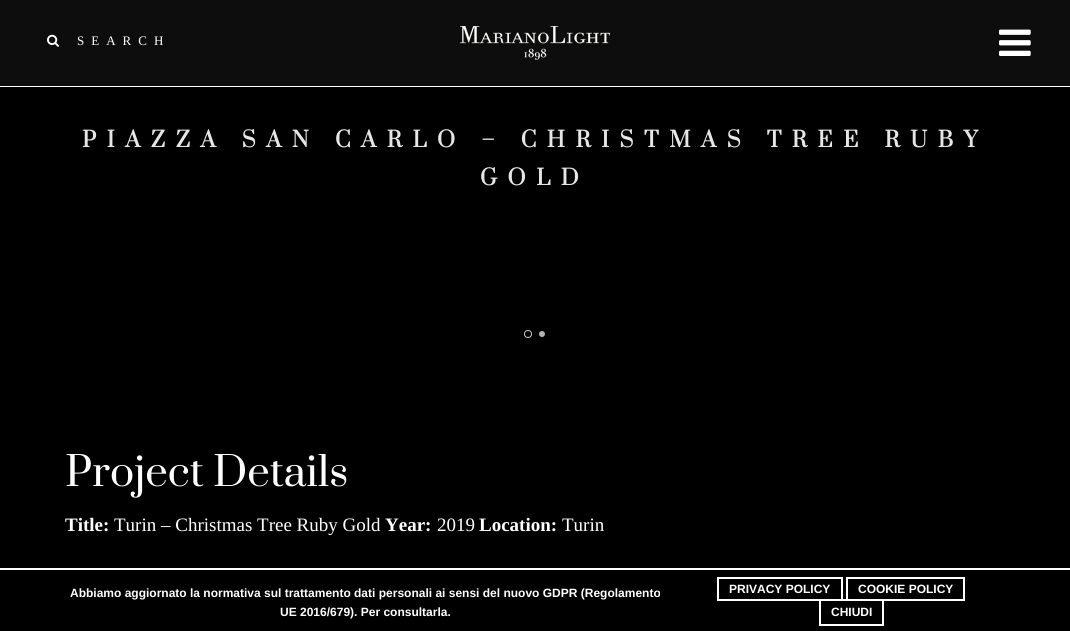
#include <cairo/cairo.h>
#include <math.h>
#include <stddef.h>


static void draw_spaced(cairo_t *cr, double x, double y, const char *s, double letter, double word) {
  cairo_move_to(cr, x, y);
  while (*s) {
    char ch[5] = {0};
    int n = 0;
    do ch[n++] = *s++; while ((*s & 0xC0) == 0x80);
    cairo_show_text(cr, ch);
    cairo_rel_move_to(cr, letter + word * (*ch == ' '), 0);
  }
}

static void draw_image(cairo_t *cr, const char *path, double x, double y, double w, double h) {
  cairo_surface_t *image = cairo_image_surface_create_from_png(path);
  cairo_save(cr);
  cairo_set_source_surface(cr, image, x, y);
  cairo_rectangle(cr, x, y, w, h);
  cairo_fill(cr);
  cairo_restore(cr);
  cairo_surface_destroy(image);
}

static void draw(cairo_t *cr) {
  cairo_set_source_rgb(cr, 0, 0, 0);
  cairo_paint(cr);
  cairo_set_source_rgb(cr, 13 / 255.0, 13 / 255.0, 13 / 255.0);
  cairo_rectangle(cr, 0, 0, 1070, 86);
  cairo_fill(cr);
  cairo_set_source_rgb(cr, 1, 1, 1);
  cairo_rectangle(cr, 0, 86, 1070, 1);
  cairo_fill(cr);
  draw_image(cr, "images/1.png", 47, 34, 12, 13);
  draw_image(cr, "images/2.png", 460, 26, 150, 34);
  draw_image(cr, "images/3.png", 999, 29, 32, 27);
  cairo_arc(cr, 528, 334, 3.5, 0, 2 * M_PI);
  cairo_set_source_rgb(cr, 204 / 255.0, 204 / 255.0, 204 / 255.0);
  cairo_set_line_width(cr, 1);
  cairo_stroke(cr);
  cairo_set_source_rgb(cr, 179 / 255.0, 179 / 255.0, 179 / 255.0);
  cairo_arc(cr, 542, 334, 3, 0, 2 * M_PI);
  cairo_fill(cr);
  cairo_set_source_rgb(cr, 1, 1, 1);
  cairo_rectangle(cr, 0, 568, 1070, 2);
  cairo_fill(cr);
  cairo_rectangle(cr, 718, 578, 124, 22);
  cairo_set_line_width(cr, 2);
  cairo_stroke(cr);
  cairo_rectangle(cr, 847, 578, 117, 22);
  cairo_stroke(cr);
  cairo_rectangle(cr, 820, 600, 63, 25);
  cairo_stroke(cr);
  cairo_select_font_face(cr, "Liberation Serif", CAIRO_FONT_SLANT_NORMAL, CAIRO_FONT_WEIGHT_NORMAL);
  cairo_set_font_size(cr, 13);
  draw_spaced(cr, 77, 45, "SEARCH", 7, 0);
  cairo_select_font_face(cr, "Prata", CAIRO_FONT_SLANT_NORMAL, CAIRO_FONT_WEIGHT_BOLD);
  cairo_set_font_size(cr, 21);
  cairo_set_source_rgb(cr, 230 / 255.0, 230 / 255.0, 230 / 255.0);
  draw_spaced(cr, 82, 147, "PIAZZA SAN CARLO – CHRISTMAS TREE RUBY", 10.5, 0);
  draw_spaced(cr, 480, 185, "GOLD", 10.5, 0);
  cairo_select_font_face(cr, "Prata", CAIRO_FONT_SLANT_NORMAL, CAIRO_FONT_WEIGHT_NORMAL);
  cairo_set_font_size(cr, 40);
  cairo_set_source_rgb(cr, 1, 1, 1);
  cairo_move_to(cr, 65, 486);
  cairo_show_text(cr, "Project Details");
  cairo_select_font_face(cr, "Liberation Serif", CAIRO_FONT_SLANT_NORMAL, CAIRO_FONT_WEIGHT_BOLD);
  cairo_set_font_size(cr, 19);
  cairo_move_to(cr, 65, 531);
  cairo_show_text(cr, "Title:");
  cairo_select_font_face(cr, "Liberation Serif", CAIRO_FONT_SLANT_NORMAL, CAIRO_FONT_WEIGHT_NORMAL);
  cairo_move_to(cr, 114, 531);
  cairo_show_text(cr, "Turin – Christmas Tree Ruby Gold");
  cairo_select_font_face(cr, "Liberation Serif", CAIRO_FONT_SLANT_NORMAL, CAIRO_FONT_WEIGHT_BOLD);
  cairo_move_to(cr, 385, 531);
  cairo_show_text(cr, "Year:");
  cairo_select_font_face(cr, "Liberation Serif", CAIRO_FONT_SLANT_NORMAL, CAIRO_FONT_WEIGHT_NORMAL);
  cairo_move_to(cr, 437, 531);
  cairo_show_text(cr, "2019");
  cairo_select_font_face(cr, "Liberation Serif", CAIRO_FONT_SLANT_NORMAL, CAIRO_FONT_WEIGHT_BOLD);
  cairo_move_to(cr, 479, 531);
  cairo_show_text(cr, "Location:");
  cairo_select_font_face(cr, "Liberation Serif", CAIRO_FONT_SLANT_NORMAL, CAIRO_FONT_WEIGHT_NORMAL);
  cairo_move_to(cr, 562, 531);
  cairo_show_text(cr, "Turin");
  cairo_select_font_face(cr, "Liberation Sans", CAIRO_FONT_SLANT_NORMAL, CAIRO_FONT_WEIGHT_BOLD);
  cairo_set_font_size(cr, 12);
  cairo_move_to(cr, 70, 597);
  cairo_show_text(cr, "Abbiamo aggiornato la normativa sul trattamento dati personali ai sensi del nuovo GDPR (Regolamento");
  cairo_move_to(cr, 280, 616);
  cairo_show_text(cr, "UE 2016/679). Per consultarla.");
  cairo_move_to(cr, 729, 593);
  cairo_show_text(cr, "PRIVACY POLICY");
  cairo_move_to(cr, 858, 593);
  cairo_show_text(cr, "COOKIE POLICY");
  cairo_move_to(cr, 831, 616);
  cairo_show_text(cr, "CHIUDI");
}

int main(void) {
  cairo_surface_t *surface = cairo_image_surface_create(CAIRO_FORMAT_RGB24, 1070, 631);
  cairo_t *cr = cairo_create(surface);
  cairo_font_options_t *options = cairo_font_options_create();
  cairo_font_options_set_hint_metrics(options, CAIRO_HINT_METRICS_OFF);
  cairo_font_options_set_hint_style(options, CAIRO_HINT_STYLE_NONE);
  cairo_set_font_options(cr, options);
  cairo_set_miter_limit(cr, 4);
  draw(cr);
  cairo_surface_write_to_png(surface, "out.png");
  cairo_font_options_destroy(options);
  cairo_destroy(cr);
  cairo_surface_destroy(surface);
  return 0;
}
